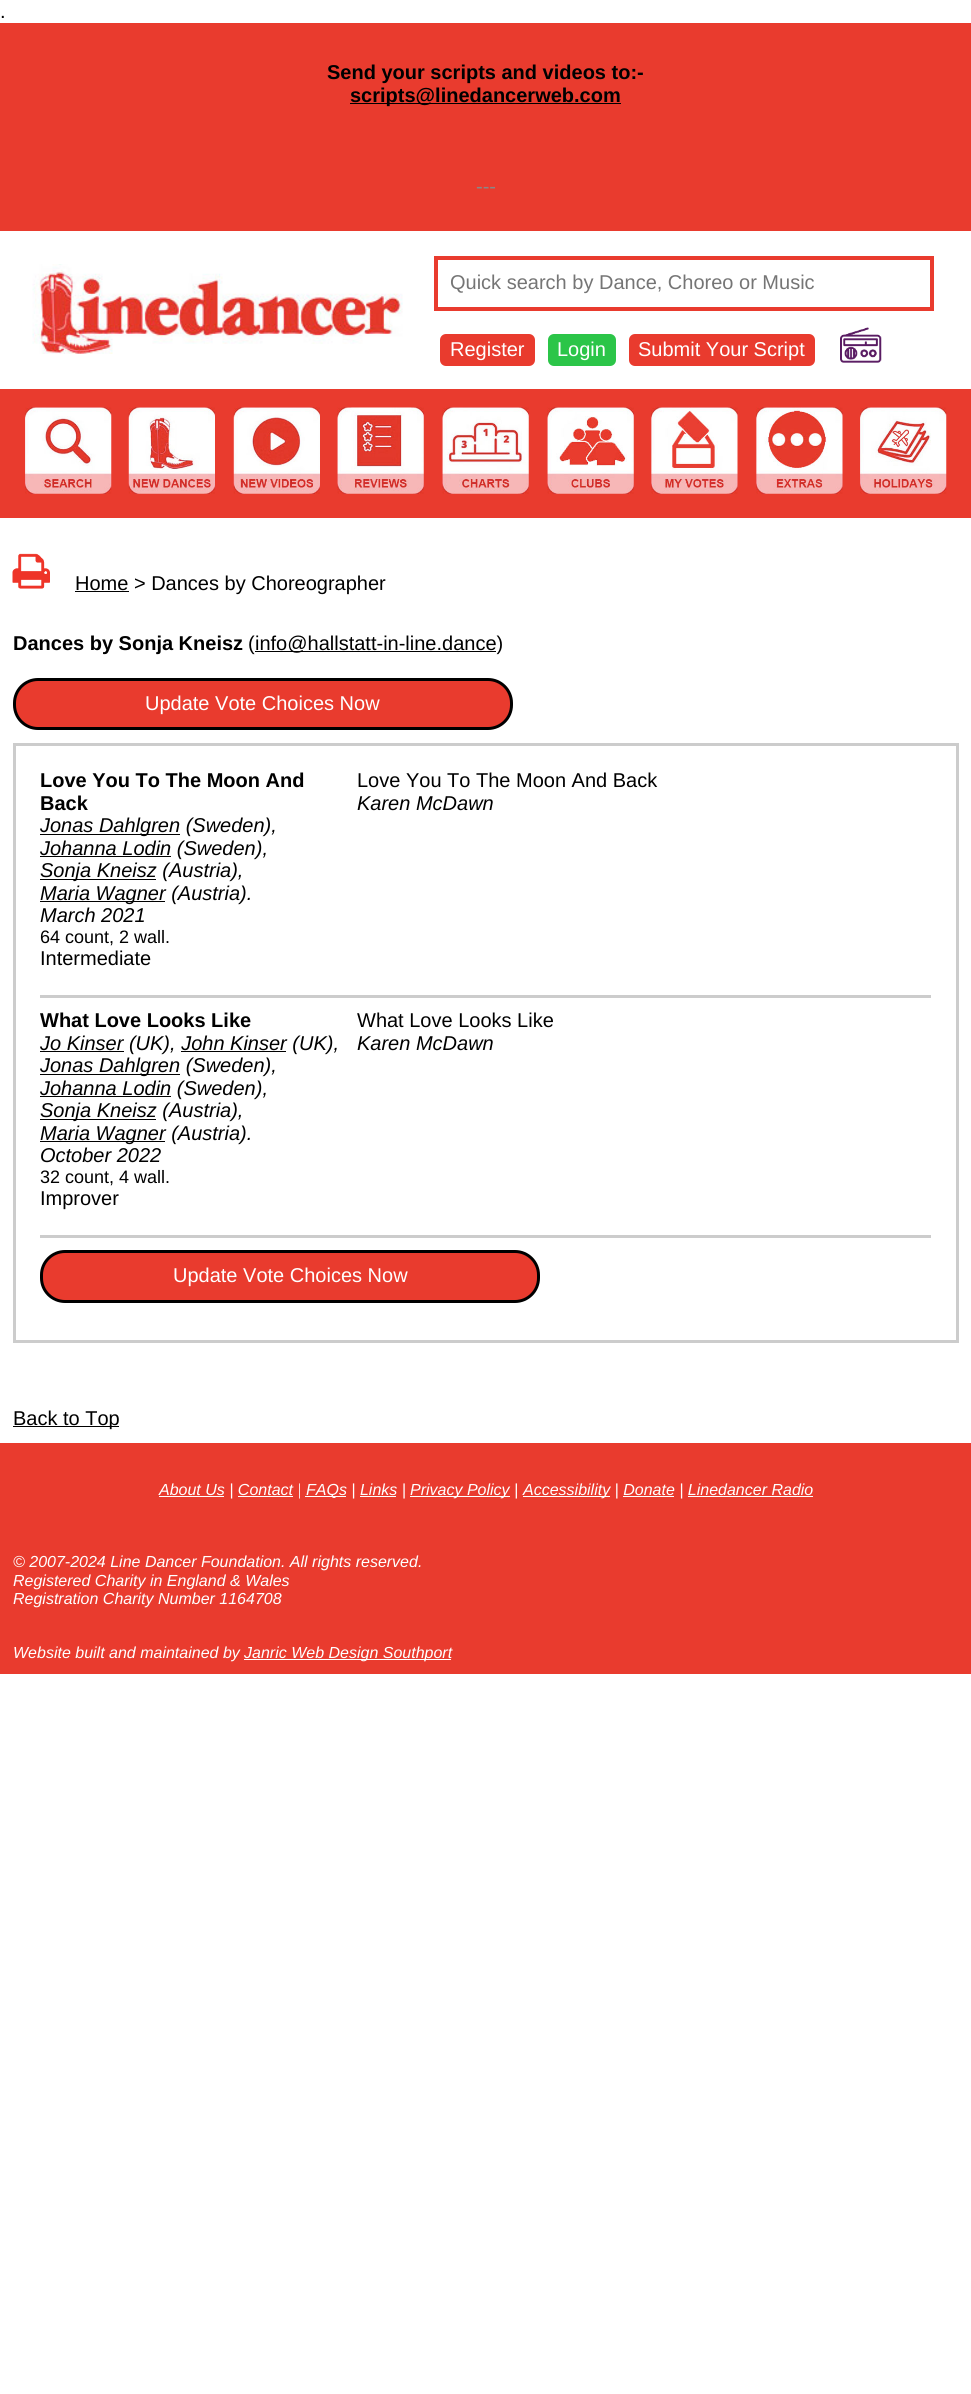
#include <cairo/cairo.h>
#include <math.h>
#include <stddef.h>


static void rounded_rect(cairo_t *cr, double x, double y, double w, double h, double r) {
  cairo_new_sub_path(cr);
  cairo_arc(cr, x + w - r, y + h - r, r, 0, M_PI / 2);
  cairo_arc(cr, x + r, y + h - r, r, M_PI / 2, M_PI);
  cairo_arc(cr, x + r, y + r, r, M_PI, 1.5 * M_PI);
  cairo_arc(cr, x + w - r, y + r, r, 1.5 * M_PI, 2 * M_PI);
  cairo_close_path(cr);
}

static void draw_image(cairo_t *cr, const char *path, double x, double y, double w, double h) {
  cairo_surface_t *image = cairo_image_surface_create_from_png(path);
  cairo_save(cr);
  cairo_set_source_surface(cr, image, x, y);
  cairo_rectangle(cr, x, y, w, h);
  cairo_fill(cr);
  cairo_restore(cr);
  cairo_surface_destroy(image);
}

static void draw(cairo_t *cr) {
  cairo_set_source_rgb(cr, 1, 1, 1);
  cairo_paint(cr);
  cairo_set_source_rgb(cr, 233 / 255.0, 59 / 255.0, 46 / 255.0);
  cairo_rectangle(cr, 0, 23, 971, 208);
  cairo_fill(cr);
  cairo_set_source_rgb(cr, 0, 0, 0);
  cairo_rectangle(cr, 350, 103, 271, 1);
  cairo_fill(cr);
  draw_image(cr, "images/1.png", 32, 264, 371, 90);
  cairo_rectangle(cr, 436, 258, 496, 51);
  cairo_set_source_rgb(cr, 233 / 255.0, 59 / 255.0, 46 / 255.0);
  cairo_set_line_width(cr, 4);
  cairo_stroke(cr);
  rounded_rect(cr, 440, 334, 95, 32, 6);
  cairo_fill(cr);
  cairo_set_source_rgb(cr, 43 / 255.0, 197 / 255.0, 72 / 255.0);
  rounded_rect(cr, 548, 334, 68, 32, 6);
  cairo_fill(cr);
  cairo_set_source_rgb(cr, 233 / 255.0, 59 / 255.0, 46 / 255.0);
  rounded_rect(cr, 629, 334, 186, 32, 6);
  cairo_fill(cr);
  draw_image(cr, "images/2.png", 840, 327, 42, 36);
  cairo_rectangle(cr, 0, 389, 971, 129);
  cairo_fill(cr);
  draw_image(cr, "images/3.png", 25, 407, 87, 87);
  draw_image(cr, "images/4.png", 128, 407, 87, 87);
  draw_image(cr, "images/5.png", 233, 407, 87, 87);
  draw_image(cr, "images/6.png", 337, 407, 87, 87);
  draw_image(cr, "images/7.png", 442, 407, 87, 87);
  draw_image(cr, "images/8.png", 547, 407, 87, 87);
  draw_image(cr, "images/9.png", 651, 407, 87, 87);
  draw_image(cr, "images/10.png", 756, 407, 87, 87);
  draw_image(cr, "images/11.png", 860, 407, 87, 87);
  draw_image(cr, "images/12.png", 12, 553, 38, 36);
  cairo_set_source_rgb(cr, 0, 0, 0);
  cairo_rectangle(cr, 75, 591, 54, 1);
  cairo_fill(cr);
  cairo_rectangle(cr, 255, 651, 241, 1);
  cairo_fill(cr);
  cairo_set_source_rgb(cr, 233 / 255.0, 59 / 255.0, 46 / 255.0);
  rounded_rect(cr, 14.5, 679.5, 497, 49, 23.5);
  cairo_fill_preserve(cr);
  cairo_set_source_rgb(cr, 0, 0, 0);
  cairo_set_line_width(cr, 3);
  cairo_stroke(cr);
  cairo_rectangle(cr, 14.5, 744.5, 943, 597);
  cairo_set_source_rgb(cr, 204 / 255.0, 204 / 255.0, 204 / 255.0);
  cairo_stroke(cr);
  cairo_set_source_rgb(cr, 0, 0, 0);
  cairo_rectangle(cr, 40, 834, 140, 1);
  cairo_fill(cr);
  cairo_rectangle(cr, 40, 856, 131, 1);
  cairo_fill(cr);
  cairo_rectangle(cr, 40, 879, 116, 1);
  cairo_fill(cr);
  cairo_rectangle(cr, 40, 901, 125, 1);
  cairo_fill(cr);
  cairo_set_source_rgb(cr, 204 / 255.0, 204 / 255.0, 204 / 255.0);
  cairo_rectangle(cr, 40, 995, 891, 3);
  cairo_fill(cr);
  cairo_set_source_rgb(cr, 0, 0, 0);
  cairo_rectangle(cr, 40, 1051, 84, 1);
  cairo_fill(cr);
  cairo_rectangle(cr, 181, 1051, 105, 1);
  cairo_fill(cr);
  cairo_rectangle(cr, 40, 1074, 140, 1);
  cairo_fill(cr);
  cairo_rectangle(cr, 40, 1096, 131, 1);
  cairo_fill(cr);
  cairo_rectangle(cr, 40, 1119, 116, 1);
  cairo_fill(cr);
  cairo_rectangle(cr, 40, 1141, 125, 1);
  cairo_fill(cr);
  cairo_set_source_rgb(cr, 204 / 255.0, 204 / 255.0, 204 / 255.0);
  cairo_rectangle(cr, 40, 1235, 891, 3);
  cairo_fill(cr);
  cairo_set_source_rgb(cr, 233 / 255.0, 59 / 255.0, 46 / 255.0);
  rounded_rect(cr, 41.5, 1251.5, 497, 50, 23.5);
  cairo_fill_preserve(cr);
  cairo_set_source_rgb(cr, 0, 0, 0);
  cairo_stroke(cr);
  cairo_rectangle(cr, 13, 1426, 106, 1);
  cairo_fill(cr);
  cairo_set_source_rgb(cr, 233 / 255.0, 59 / 255.0, 46 / 255.0);
  cairo_rectangle(cr, 0, 1443, 971, 231);
  cairo_fill(cr);
  cairo_set_source_rgb(cr, 1, 1, 1);
  cairo_rectangle(cr, 159, 1496, 65, 1);
  cairo_fill(cr);
  cairo_rectangle(cr, 305, 1496, 41, 1);
  cairo_fill(cr);
  cairo_rectangle(cr, 410, 1496, 100, 1);
  cairo_fill(cr);
  cairo_rectangle(cr, 523, 1496, 87, 1);
  cairo_fill(cr);
  cairo_rectangle(cr, 238, 1496, 55, 1);
  cairo_fill(cr);
  cairo_rectangle(cr, 360, 1496, 36, 1);
  cairo_fill(cr);
  cairo_rectangle(cr, 623, 1496, 51, 1);
  cairo_fill(cr);
  cairo_rectangle(cr, 688, 1496, 125, 1);
  cairo_fill(cr);
  cairo_rectangle(cr, 244, 1659, 207, 1);
  cairo_fill(cr);
  cairo_select_font_face(cr, "Liberation Sans", CAIRO_FONT_SLANT_NORMAL, CAIRO_FONT_WEIGHT_NORMAL);
  cairo_set_font_size(cr, 20);
  cairo_set_source_rgb(cr, 0, 0, 0);
  cairo_move_to(cr, 0, 18);
  cairo_show_text(cr, ".");
  cairo_select_font_face(cr, "Liberation Sans", CAIRO_FONT_SLANT_NORMAL, CAIRO_FONT_WEIGHT_BOLD);
  cairo_move_to(cr, 327, 79);
  cairo_show_text(cr, "Send your scripts and videos to:-");
  cairo_move_to(cr, 350, 102);
  cairo_show_text(cr, "scripts@linedancerweb.com");
  cairo_select_font_face(cr, "Liberation Sans", CAIRO_FONT_SLANT_NORMAL, CAIRO_FONT_WEIGHT_NORMAL);
  cairo_set_source_rgb(cr, 136 / 255.0, 136 / 255.0, 136 / 255.0);
  cairo_move_to(cr, 476, 193);
  cairo_show_text(cr, "---");
  cairo_set_source_rgb(cr, 117 / 255.0, 117 / 255.0, 117 / 255.0);
  cairo_move_to(cr, 450, 289);
  cairo_show_text(cr, "Quick search by Dance, Choreo or Music");
  cairo_set_source_rgb(cr, 1, 1, 1);
  cairo_move_to(cr, 450, 356);
  cairo_show_text(cr, "Register");
  cairo_move_to(cr, 557, 356);
  cairo_show_text(cr, "Login");
  cairo_move_to(cr, 638, 356);
  cairo_show_text(cr, "Submit Your Script");
  cairo_set_source_rgb(cr, 0, 0, 0);
  cairo_move_to(cr, 75, 590);
  cairo_show_text(cr, "Home > Dances by Choreographer");
  cairo_select_font_face(cr, "Liberation Sans", CAIRO_FONT_SLANT_NORMAL, CAIRO_FONT_WEIGHT_BOLD);
  cairo_move_to(cr, 13, 650);
  cairo_show_text(cr, "Dances by Sonja Kneisz");
  cairo_select_font_face(cr, "Liberation Sans", CAIRO_FONT_SLANT_NORMAL, CAIRO_FONT_WEIGHT_NORMAL);
  cairo_move_to(cr, 248, 650);
  cairo_show_text(cr, "(");
  cairo_move_to(cr, 255, 650);
  cairo_show_text(cr, "info@hallstatt-in-line.dance)");
  cairo_set_source_rgb(cr, 1, 1, 1);
  cairo_move_to(cr, 145, 710);
  cairo_show_text(cr, "Update Vote Choices Now");
  cairo_select_font_face(cr, "Liberation Sans", CAIRO_FONT_SLANT_NORMAL, CAIRO_FONT_WEIGHT_BOLD);
  cairo_set_source_rgb(cr, 0, 0, 0);
  cairo_move_to(cr, 40, 787);
  cairo_show_text(cr, "Love You To The Moon And");
  cairo_move_to(cr, 40, 810);
  cairo_show_text(cr, "Back");
  cairo_select_font_face(cr, "Liberation Sans", CAIRO_FONT_SLANT_ITALIC, CAIRO_FONT_WEIGHT_NORMAL);
  cairo_move_to(cr, 40, 832);
  cairo_show_text(cr, "Jonas Dahlgren (Sweden),");
  cairo_move_to(cr, 40, 855);
  cairo_show_text(cr, "Johanna Lodin (Sweden),");
  cairo_move_to(cr, 40, 877);
  cairo_show_text(cr, "Sonja Kneisz (Austria),");
  cairo_move_to(cr, 40, 900);
  cairo_show_text(cr, "Maria Wagner (Austria).");
  cairo_move_to(cr, 40, 922);
  cairo_show_text(cr, "March 2021");
  cairo_select_font_face(cr, "Liberation Sans", CAIRO_FONT_SLANT_NORMAL, CAIRO_FONT_WEIGHT_NORMAL);
  cairo_set_font_size(cr, 18);
  cairo_move_to(cr, 40, 943);
  cairo_show_text(cr, "64 count, 2 wall.");
  cairo_set_font_size(cr, 20);
  cairo_move_to(cr, 40, 965);
  cairo_show_text(cr, "Intermediate");
  cairo_move_to(cr, 357, 787);
  cairo_show_text(cr, "Love You To The Moon And Back");
  cairo_select_font_face(cr, "Liberation Sans", CAIRO_FONT_SLANT_ITALIC, CAIRO_FONT_WEIGHT_NORMAL);
  cairo_move_to(cr, 357, 810);
  cairo_show_text(cr, "Karen McDawn");
  cairo_select_font_face(cr, "Liberation Sans", CAIRO_FONT_SLANT_NORMAL, CAIRO_FONT_WEIGHT_BOLD);
  cairo_move_to(cr, 40, 1027);
  cairo_show_text(cr, "What Love Looks Like");
  cairo_select_font_face(cr, "Liberation Sans", CAIRO_FONT_SLANT_ITALIC, CAIRO_FONT_WEIGHT_NORMAL);
  cairo_move_to(cr, 40, 1050);
  cairo_show_text(cr, "Jo Kinser (UK), John Kinser (UK),");
  cairo_move_to(cr, 40, 1072);
  cairo_show_text(cr, "Jonas Dahlgren (Sweden),");
  cairo_move_to(cr, 40, 1095);
  cairo_show_text(cr, "Johanna Lodin (Sweden),");
  cairo_move_to(cr, 40, 1117);
  cairo_show_text(cr, "Sonja Kneisz (Austria),");
  cairo_move_to(cr, 40, 1140);
  cairo_show_text(cr, "Maria Wagner (Austria).");
  cairo_move_to(cr, 40, 1162);
  cairo_show_text(cr, "October 2022");
  cairo_select_font_face(cr, "Liberation Sans", CAIRO_FONT_SLANT_NORMAL, CAIRO_FONT_WEIGHT_NORMAL);
  cairo_set_font_size(cr, 18);
  cairo_move_to(cr, 40, 1183);
  cairo_show_text(cr, "32 count, 4 wall.");
  cairo_set_font_size(cr, 20);
  cairo_move_to(cr, 40, 1205);
  cairo_show_text(cr, "Improver");
  cairo_move_to(cr, 357, 1027);
  cairo_show_text(cr, "What Love Looks Like");
  cairo_select_font_face(cr, "Liberation Sans", CAIRO_FONT_SLANT_ITALIC, CAIRO_FONT_WEIGHT_NORMAL);
  cairo_move_to(cr, 357, 1050);
  cairo_show_text(cr, "Karen McDawn");
  cairo_select_font_face(cr, "Liberation Sans", CAIRO_FONT_SLANT_NORMAL, CAIRO_FONT_WEIGHT_NORMAL);
  cairo_set_source_rgb(cr, 1, 1, 1);
  cairo_move_to(cr, 173, 1282);
  cairo_show_text(cr, "Update Vote Choices Now");
  cairo_set_source_rgb(cr, 0, 0, 0);
  cairo_move_to(cr, 13, 1425);
  cairo_show_text(cr, "Back to Top");
  cairo_select_font_face(cr, "Liberation Sans", CAIRO_FONT_SLANT_ITALIC, CAIRO_FONT_WEIGHT_NORMAL);
  cairo_set_font_size(cr, 16);
  cairo_set_source_rgb(cr, 1, 1, 1);
  cairo_move_to(cr, 159, 1495);
  cairo_show_text(cr, "About Us | Contact |");
  cairo_move_to(cr, 306, 1495);
  cairo_show_text(cr, "FAQs | Links |");
  cairo_move_to(cr, 410, 1495);
  cairo_show_text(cr, "Privacy Policy |");
  cairo_move_to(cr, 523, 1495);
  cairo_show_text(cr, "Accessibility | Donate | Linedancer Radio");
  cairo_move_to(cr, 13, 1567);
  cairo_show_text(cr, "© 2007-2024 Line Dancer Foundation. All rights reserved.");
  cairo_move_to(cr, 13, 1586);
  cairo_show_text(cr, "Registered Charity in England & Wales");
  cairo_move_to(cr, 13, 1604);
  cairo_show_text(cr, "Registration Charity Number 1164708");
  cairo_move_to(cr, 13, 1658);
  cairo_show_text(cr, "Website built and maintained by");
  cairo_move_to(cr, 244, 1658);
  cairo_show_text(cr, "Janric Web Design Southport");
}

int main(void) {
  cairo_surface_t *surface = cairo_image_surface_create(CAIRO_FORMAT_RGB24, 971, 2394);
  cairo_t *cr = cairo_create(surface);
  cairo_font_options_t *options = cairo_font_options_create();
  cairo_font_options_set_hint_metrics(options, CAIRO_HINT_METRICS_OFF);
  cairo_font_options_set_hint_style(options, CAIRO_HINT_STYLE_NONE);
  cairo_set_font_options(cr, options);
  cairo_set_miter_limit(cr, 4);
  draw(cr);
  cairo_surface_write_to_png(surface, "out.png");
  cairo_font_options_destroy(options);
  cairo_destroy(cr);
  cairo_surface_destroy(surface);
  return 0;
}
